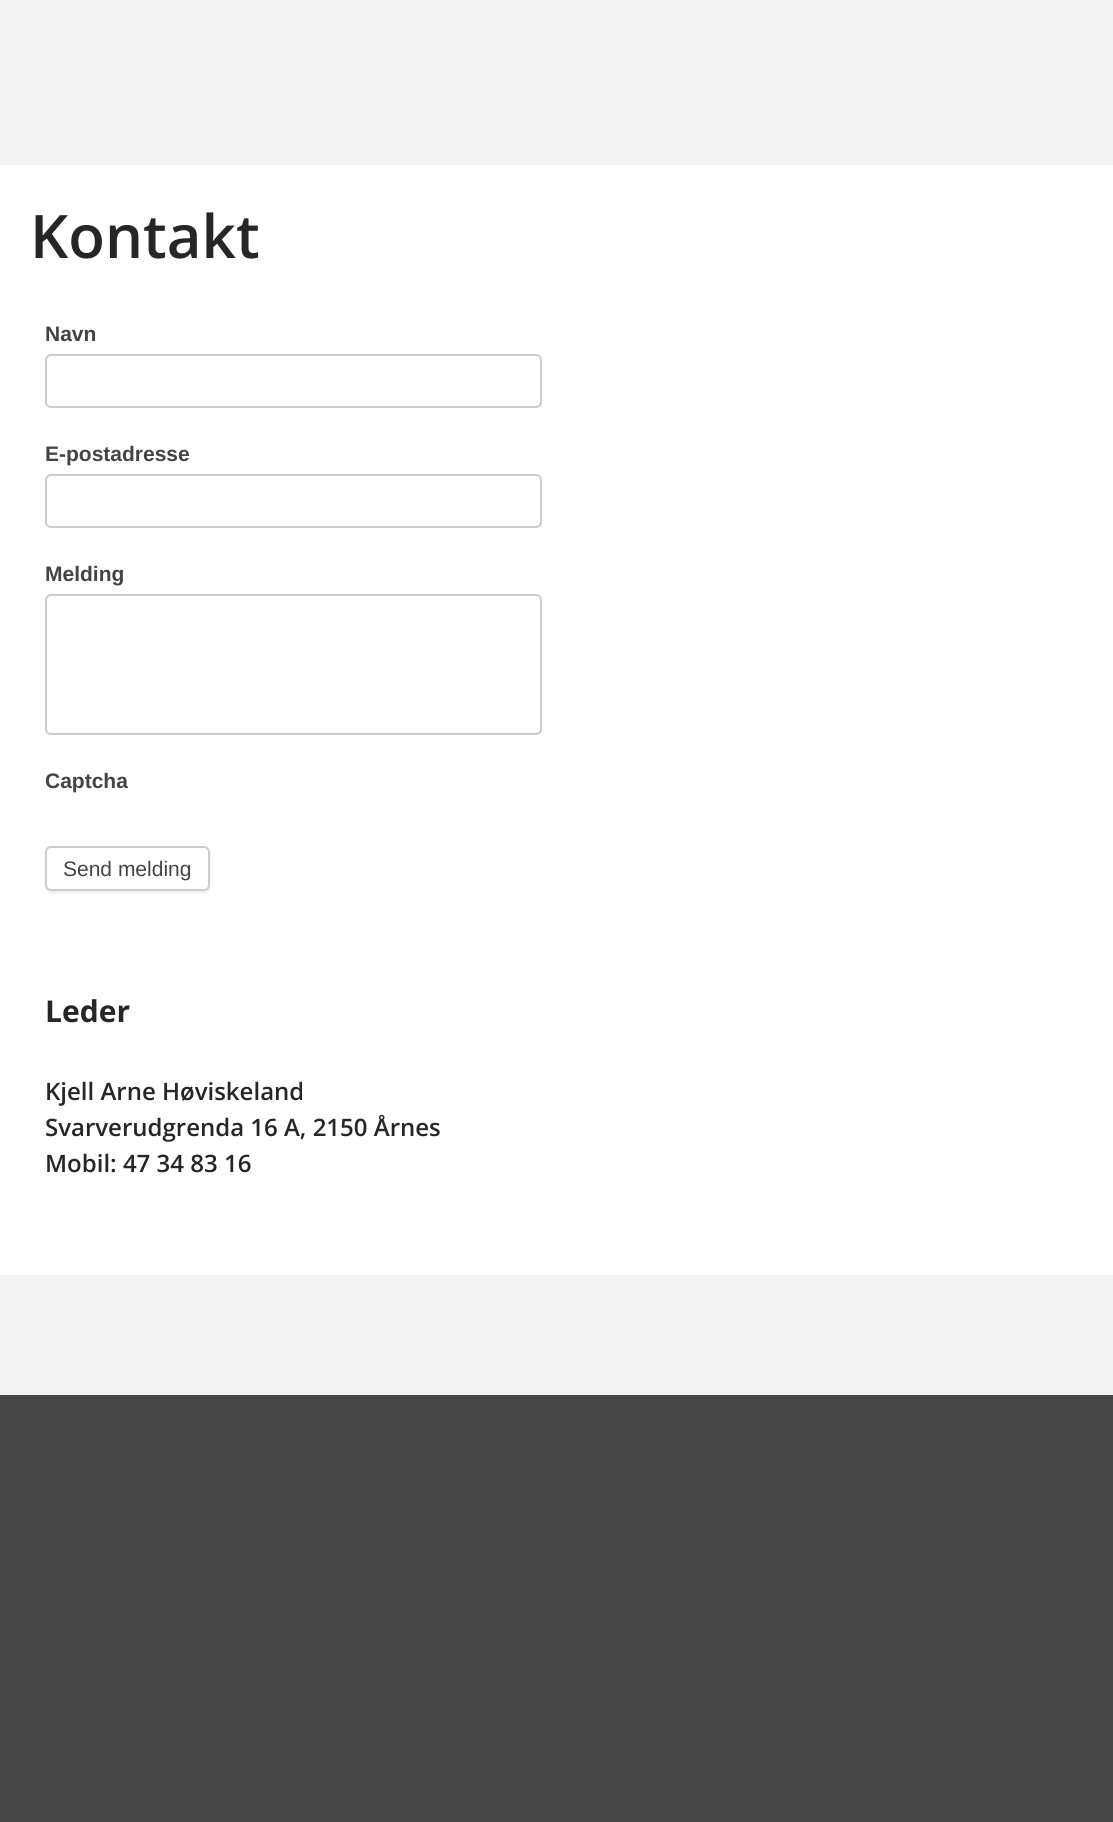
#include <cairo/cairo.h>
#include <math.h>
#include <stddef.h>


static void rounded_rect(cairo_t *cr, double x, double y, double w, double h, double r) {
  cairo_new_sub_path(cr);
  cairo_arc(cr, x + w - r, y + h - r, r, 0, M_PI / 2);
  cairo_arc(cr, x + r, y + h - r, r, M_PI / 2, M_PI);
  cairo_arc(cr, x + r, y + r, r, M_PI, 1.5 * M_PI);
  cairo_arc(cr, x + w - r, y + r, r, 1.5 * M_PI, 2 * M_PI);
  cairo_close_path(cr);
}

static void draw_shadow(cairo_t *cr, double x, double y, double w, double h, double r, double blur, double alpha) {
  cairo_push_group_with_content(cr, CAIRO_CONTENT_ALPHA);
  cairo_set_operator(cr, CAIRO_OPERATOR_SOURCE);
  for (int i = 15; i >= -15 && fmin(w, h) + blur * i / 3 > 0; i -= 2) {
    double e = blur * i / 6;
    cairo_set_source_rgba(cr, 0, 0, 0, alpha * erfc((i - 1) / 8.5) / 2);
    rounded_rect(cr, x - e, y - e, w + 2 * e, h + 2 * e, fmax(0, fmin(r + e + blur * .6, fmin(w, h) / 2 + e)));
    cairo_fill(cr);
  }
  cairo_pattern_t *soft = cairo_pop_group(cr);
  cairo_mask(cr, soft);
  cairo_pattern_destroy(soft);
}

static void draw(cairo_t *cr) {
  cairo_set_source_rgb(cr, 69 / 255.0, 69 / 255.0, 69 / 255.0);
  cairo_paint(cr);
  cairo_set_source_rgb(cr, 1, 1, 1);
  cairo_rectangle(cr, 0, 165, 1113, 1110);
  cairo_fill(cr);
  cairo_set_source_rgb(cr, 243 / 255.0, 243 / 255.0, 243 / 255.0);
  cairo_rectangle(cr, 0, 0, 1113, 165);
  cairo_fill(cr);
  rounded_rect(cr, 46, 355, 495, 52, 5);
  cairo_set_source_rgb(cr, 204 / 255.0, 204 / 255.0, 204 / 255.0);
  cairo_stroke(cr);
  rounded_rect(cr, 46, 475, 495, 52, 5);
  cairo_stroke(cr);
  rounded_rect(cr, 46, 595, 495, 139, 5);
  cairo_stroke(cr);
  cairo_set_source_rgb(cr, 238 / 255.0, 238 / 255.0, 238 / 255.0);
  draw_shadow(cr, 45, 848, 165, 45, 6, 1, 1);
  cairo_set_source_rgb(cr, 1, 1, 1);
  rounded_rect(cr, 46, 847, 163, 43, 5);
  cairo_fill_preserve(cr);
  cairo_set_source_rgb(cr, 204 / 255.0, 204 / 255.0, 204 / 255.0);
  cairo_stroke(cr);
  cairo_set_source_rgb(cr, 243 / 255.0, 243 / 255.0, 243 / 255.0);
  cairo_rectangle(cr, 0, 1275, 1113, 120);
  cairo_fill(cr);
  cairo_select_font_face(cr, "Open Sans SemiBold", CAIRO_FONT_SLANT_NORMAL, CAIRO_FONT_WEIGHT_NORMAL);
  cairo_set_font_size(cr, 60);
  cairo_set_source_rgb(cr, 38 / 255.0, 38 / 255.0, 38 / 255.0);
  cairo_move_to(cr, 30, 258);
  cairo_show_text(cr, "Kontakt");
  cairo_select_font_face(cr, "Liberation Sans", CAIRO_FONT_SLANT_NORMAL, CAIRO_FONT_WEIGHT_BOLD);
  cairo_set_font_size(cr, 21);
  cairo_set_source_rgb(cr, 68 / 255.0, 68 / 255.0, 68 / 255.0);
  cairo_move_to(cr, 45, 341);
  cairo_show_text(cr, "Navn");
  cairo_move_to(cr, 45, 461);
  cairo_show_text(cr, "E-postadresse");
  cairo_move_to(cr, 45, 581);
  cairo_show_text(cr, "Melding");
  cairo_move_to(cr, 45, 788);
  cairo_show_text(cr, "Captcha");
  cairo_select_font_face(cr, "Liberation Sans", CAIRO_FONT_SLANT_NORMAL, CAIRO_FONT_WEIGHT_NORMAL);
  cairo_move_to(cr, 63, 876);
  cairo_show_text(cr, "Send melding");
  cairo_select_font_face(cr, "Open Sans", CAIRO_FONT_SLANT_NORMAL, CAIRO_FONT_WEIGHT_BOLD);
  cairo_set_font_size(cr, 30);
  cairo_set_source_rgb(cr, 38 / 255.0, 38 / 255.0, 38 / 255.0);
  cairo_move_to(cr, 45, 1022);
  cairo_show_text(cr, "Leder");
  cairo_select_font_face(cr, "Open Sans SemiBold", CAIRO_FONT_SLANT_NORMAL, CAIRO_FONT_WEIGHT_NORMAL);
  cairo_set_font_size(cr, 24);
  cairo_move_to(cr, 45, 1100);
  cairo_show_text(cr, "Kjell Arne Høviskeland");
  cairo_move_to(cr, 45, 1136);
  cairo_show_text(cr, "Svarverudgrenda 16 A, 2150 Årnes");
  cairo_move_to(cr, 45, 1172);
  cairo_show_text(cr, "Mobil: 47 34 83 16");
}

int main(void) {
  cairo_surface_t *surface = cairo_image_surface_create(CAIRO_FORMAT_RGB24, 1113, 1822);
  cairo_t *cr = cairo_create(surface);
  cairo_font_options_t *options = cairo_font_options_create();
  cairo_font_options_set_hint_metrics(options, CAIRO_HINT_METRICS_OFF);
  cairo_font_options_set_hint_style(options, CAIRO_HINT_STYLE_NONE);
  cairo_set_font_options(cr, options);
  cairo_set_miter_limit(cr, 4);
  draw(cr);
  cairo_surface_write_to_png(surface, "out.png");
  cairo_font_options_destroy(options);
  cairo_destroy(cr);
  cairo_surface_destroy(surface);
  return 0;
}
